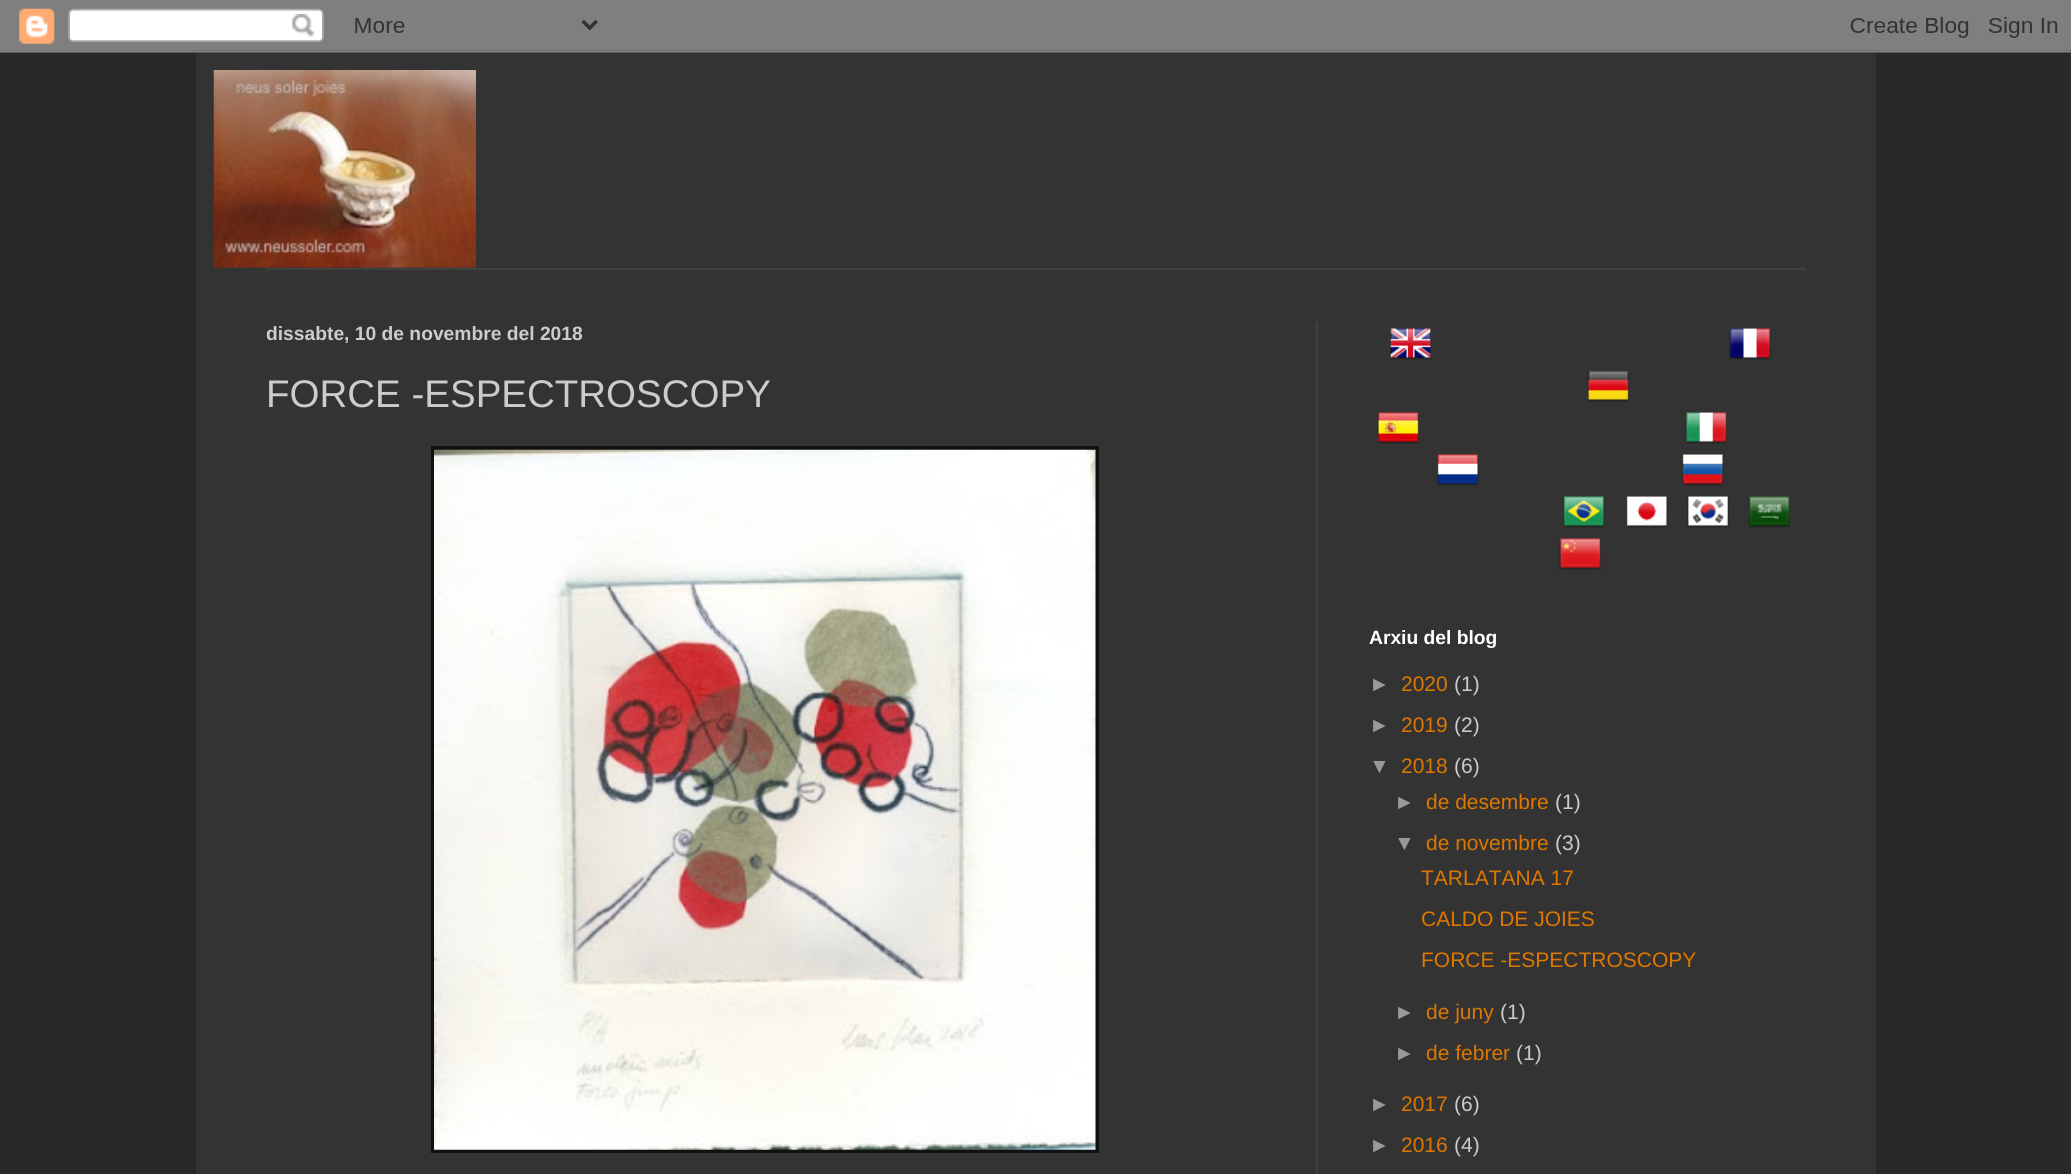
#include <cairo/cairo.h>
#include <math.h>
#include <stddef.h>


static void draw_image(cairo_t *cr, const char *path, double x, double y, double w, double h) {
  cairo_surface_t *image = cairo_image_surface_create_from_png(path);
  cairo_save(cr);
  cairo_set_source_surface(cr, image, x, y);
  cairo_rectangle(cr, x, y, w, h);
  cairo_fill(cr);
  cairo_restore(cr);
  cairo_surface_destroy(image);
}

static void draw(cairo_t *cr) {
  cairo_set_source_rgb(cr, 41 / 255.0, 41 / 255.0, 41 / 255.0);
  cairo_paint(cr);
  draw_image(cr, "images/1.png", 0, 0, 2071, 53);
  cairo_set_source_rgb(cr, 51 / 255.0, 51 / 255.0, 51 / 255.0);
  cairo_rectangle(cr, 196, 53, 1680, 1121);
  cairo_fill(cr);
  draw_image(cr, "images/2.png", 213, 70, 263, 198);
  cairo_set_source_rgb(cr, 64 / 255.0, 64 / 255.0, 64 / 255.0);
  cairo_rectangle(cr, 266, 268, 1540, 2);
  cairo_fill(cr);
  cairo_rectangle(cr, 1316, 322, 2, 852);
  cairo_fill(cr);
  cairo_set_source_rgb(cr, 17 / 255.0, 17 / 255.0, 17 / 255.0);
  cairo_rectangle(cr, 431, 446, 668, 707);
  cairo_fill(cr);
  draw_image(cr, "images/3.png", 434, 449, 662, 701);
  draw_image(cr, "images/4.png", 1390, 328, 41, 32);
  draw_image(cr, "images/5.png", 1729, 328, 42, 32);
  draw_image(cr, "images/6.png", 1587, 370, 42, 32);
  draw_image(cr, "images/7.png", 1377, 412, 42, 32);
  draw_image(cr, "images/8.png", 1685, 412, 42, 32);
  draw_image(cr, "images/9.png", 1437, 454, 42, 32);
  draw_image(cr, "images/10.png", 1682, 454, 42, 32);
  draw_image(cr, "images/11.png", 1563, 496, 42, 32);
  draw_image(cr, "images/12.png", 1626, 496, 42, 32);
  draw_image(cr, "images/13.png", 1687, 496, 42, 32);
  draw_image(cr, "images/14.png", 1748, 496, 42, 32);
  draw_image(cr, "images/15.png", 1559, 538, 42, 32);
  cairo_select_font_face(cr, "Liberation Sans", CAIRO_FONT_SLANT_NORMAL, CAIRO_FONT_WEIGHT_BOLD);
  cairo_set_font_size(cr, 19.25);
  cairo_set_source_rgb(cr, 204 / 255.0, 204 / 255.0, 204 / 255.0);
  cairo_move_to(cr, 266, 340);
  cairo_show_text(cr, "dissabte, 10 de novembre del 2018");
  cairo_select_font_face(cr, "Liberation Sans", CAIRO_FONT_SLANT_NORMAL, CAIRO_FONT_WEIGHT_NORMAL);
  cairo_set_font_size(cr, 38.5);
  cairo_move_to(cr, 266, 407);
  cairo_show_text(cr, "FORCE -ESPECTROSCOPY");
  cairo_select_font_face(cr, "Liberation Sans", CAIRO_FONT_SLANT_NORMAL, CAIRO_FONT_WEIGHT_BOLD);
  cairo_set_font_size(cr, 19.25);
  cairo_set_source_rgb(cr, 1, 1, 1);
  cairo_move_to(cr, 1369, 644);
  cairo_show_text(cr, "Arxiu del blog");
  cairo_select_font_face(cr, "Liberation Sans", CAIRO_FONT_SLANT_NORMAL, CAIRO_FONT_WEIGHT_NORMAL);
  cairo_set_font_size(cr, 21);
  cairo_set_source_rgb(cr, 153 / 255.0, 153 / 255.0, 153 / 255.0);
  cairo_move_to(cr, 1369, 691);
  cairo_show_text(cr, "►");
  cairo_set_source_rgb(cr, 221 / 255.0, 119 / 255.0, 0);
  cairo_move_to(cr, 1401, 691);
  cairo_show_text(cr, "2020");
  cairo_set_source_rgb(cr, 204 / 255.0, 204 / 255.0, 204 / 255.0);
  cairo_move_to(cr, 1454, 691);
  cairo_show_text(cr, "(1)");
  cairo_set_source_rgb(cr, 153 / 255.0, 153 / 255.0, 153 / 255.0);
  cairo_move_to(cr, 1369, 732);
  cairo_show_text(cr, "►");
  cairo_set_source_rgb(cr, 221 / 255.0, 119 / 255.0, 0);
  cairo_move_to(cr, 1401, 732);
  cairo_show_text(cr, "2019");
  cairo_set_source_rgb(cr, 204 / 255.0, 204 / 255.0, 204 / 255.0);
  cairo_move_to(cr, 1454, 732);
  cairo_show_text(cr, "(2)");
  cairo_set_source_rgb(cr, 153 / 255.0, 153 / 255.0, 153 / 255.0);
  cairo_move_to(cr, 1369, 773);
  cairo_show_text(cr, "▼");
  cairo_set_source_rgb(cr, 221 / 255.0, 119 / 255.0, 0);
  cairo_move_to(cr, 1401, 773);
  cairo_show_text(cr, "2018");
  cairo_set_source_rgb(cr, 204 / 255.0, 204 / 255.0, 204 / 255.0);
  cairo_move_to(cr, 1454, 773);
  cairo_show_text(cr, "(6)");
  cairo_set_source_rgb(cr, 153 / 255.0, 153 / 255.0, 153 / 255.0);
  cairo_move_to(cr, 1394, 809);
  cairo_show_text(cr, "►");
  cairo_set_source_rgb(cr, 221 / 255.0, 119 / 255.0, 0);
  cairo_move_to(cr, 1426, 809);
  cairo_show_text(cr, "de desembre");
  cairo_set_source_rgb(cr, 204 / 255.0, 204 / 255.0, 204 / 255.0);
  cairo_move_to(cr, 1555, 809);
  cairo_show_text(cr, "(1)");
  cairo_set_source_rgb(cr, 153 / 255.0, 153 / 255.0, 153 / 255.0);
  cairo_move_to(cr, 1394, 850);
  cairo_show_text(cr, "▼");
  cairo_set_source_rgb(cr, 221 / 255.0, 119 / 255.0, 0);
  cairo_move_to(cr, 1426, 850);
  cairo_show_text(cr, "de novembre");
  cairo_set_source_rgb(cr, 204 / 255.0, 204 / 255.0, 204 / 255.0);
  cairo_move_to(cr, 1555, 850);
  cairo_show_text(cr, "(3)");
  cairo_set_source_rgb(cr, 221 / 255.0, 119 / 255.0, 0);
  cairo_move_to(cr, 1421, 885);
  cairo_show_text(cr, "TARLATANA 17");
  cairo_move_to(cr, 1421, 926);
  cairo_show_text(cr, "CALDO DE JOIES");
  cairo_move_to(cr, 1421, 967);
  cairo_show_text(cr, "FORCE -ESPECTROSCOPY");
  cairo_set_source_rgb(cr, 153 / 255.0, 153 / 255.0, 153 / 255.0);
  cairo_move_to(cr, 1394, 1019);
  cairo_show_text(cr, "►");
  cairo_set_source_rgb(cr, 221 / 255.0, 119 / 255.0, 0);
  cairo_move_to(cr, 1426, 1019);
  cairo_show_text(cr, "de juny");
  cairo_set_source_rgb(cr, 204 / 255.0, 204 / 255.0, 204 / 255.0);
  cairo_move_to(cr, 1500, 1019);
  cairo_show_text(cr, "(1)");
  cairo_set_source_rgb(cr, 153 / 255.0, 153 / 255.0, 153 / 255.0);
  cairo_move_to(cr, 1394, 1060);
  cairo_show_text(cr, "►");
  cairo_set_source_rgb(cr, 221 / 255.0, 119 / 255.0, 0);
  cairo_move_to(cr, 1426, 1060);
  cairo_show_text(cr, "de febrer");
  cairo_set_source_rgb(cr, 204 / 255.0, 204 / 255.0, 204 / 255.0);
  cairo_move_to(cr, 1516, 1060);
  cairo_show_text(cr, "(1)");
  cairo_set_source_rgb(cr, 153 / 255.0, 153 / 255.0, 153 / 255.0);
  cairo_move_to(cr, 1369, 1111);
  cairo_show_text(cr, "►");
  cairo_set_source_rgb(cr, 221 / 255.0, 119 / 255.0, 0);
  cairo_move_to(cr, 1401, 1111);
  cairo_show_text(cr, "2017");
  cairo_set_source_rgb(cr, 204 / 255.0, 204 / 255.0, 204 / 255.0);
  cairo_move_to(cr, 1454, 1111);
  cairo_show_text(cr, "(6)");
  cairo_set_source_rgb(cr, 153 / 255.0, 153 / 255.0, 153 / 255.0);
  cairo_move_to(cr, 1369, 1152);
  cairo_show_text(cr, "►");
  cairo_set_source_rgb(cr, 221 / 255.0, 119 / 255.0, 0);
  cairo_move_to(cr, 1401, 1152);
  cairo_show_text(cr, "2016");
  cairo_set_source_rgb(cr, 204 / 255.0, 204 / 255.0, 204 / 255.0);
  cairo_move_to(cr, 1454, 1152);
  cairo_show_text(cr, "(4)");
}

int main(void) {
  cairo_surface_t *surface = cairo_image_surface_create(CAIRO_FORMAT_RGB24, 2071, 1174);
  cairo_t *cr = cairo_create(surface);
  cairo_font_options_t *options = cairo_font_options_create();
  cairo_font_options_set_hint_metrics(options, CAIRO_HINT_METRICS_OFF);
  cairo_font_options_set_hint_style(options, CAIRO_HINT_STYLE_NONE);
  cairo_set_font_options(cr, options);
  cairo_set_miter_limit(cr, 4);
  draw(cr);
  cairo_surface_write_to_png(surface, "out.png");
  cairo_font_options_destroy(options);
  cairo_destroy(cr);
  cairo_surface_destroy(surface);
  return 0;
}
